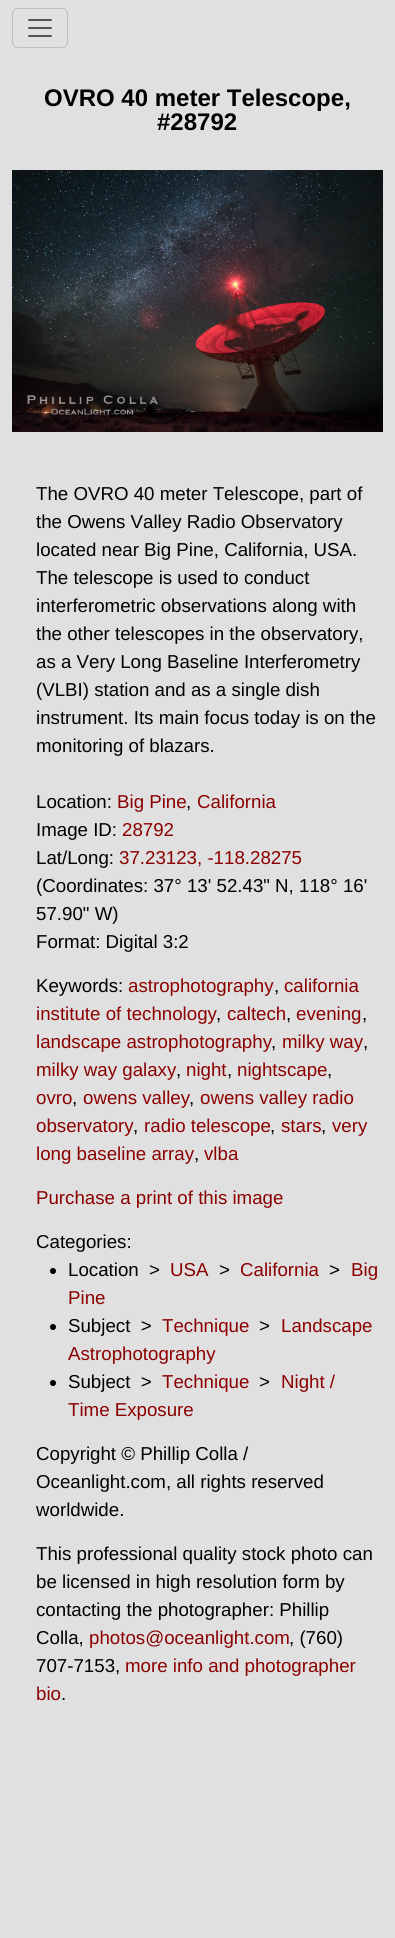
#include <cairo/cairo.h>
#include <math.h>
#include <stddef.h>


static void rounded_rect(cairo_t *cr, double x, double y, double w, double h, double r) {
  cairo_new_sub_path(cr);
  cairo_arc(cr, x + w - r, y + h - r, r, 0, M_PI / 2);
  cairo_arc(cr, x + r, y + h - r, r, M_PI / 2, M_PI);
  cairo_arc(cr, x + r, y + r, r, M_PI, 1.5 * M_PI);
  cairo_arc(cr, x + w - r, y + r, r, 1.5 * M_PI, 2 * M_PI);
  cairo_close_path(cr);
}

static void draw_image(cairo_t *cr, const char *path, double x, double y, double w, double h) {
  cairo_surface_t *image = cairo_image_surface_create_from_png(path);
  cairo_save(cr);
  cairo_set_source_surface(cr, image, x, y);
  cairo_rectangle(cr, x, y, w, h);
  cairo_fill(cr);
  cairo_restore(cr);
  cairo_surface_destroy(image);
}

static void draw(cairo_t *cr) {
  cairo_set_source_rgb(cr, 224 / 255.0, 224 / 255.0, 224 / 255.0);
  cairo_paint(cr);
  rounded_rect(cr, 12.5, 8.5, 55, 39, 5.5);
  cairo_set_source_rgb(cr, 190 / 255.0, 190 / 255.0, 190 / 255.0);
  cairo_set_line_width(cr, 1);
  cairo_stroke(cr);
  draw_image(cr, "images/1.png", 28, 19, 24, 18);
  draw_image(cr, "images/2.png", 12, 170, 371, 262);
  cairo_set_source_rgb(cr, 0, 0, 0);
  cairo_arc(cr, 53, 1271, 3, 0, 2 * M_PI);
  cairo_fill(cr);
  cairo_arc(cr, 53, 1327, 3, 0, 2 * M_PI);
  cairo_fill(cr);
  cairo_arc(cr, 53, 1383, 3, 0, 2 * M_PI);
  cairo_fill(cr);
  cairo_select_font_face(cr, "Liberation Sans", CAIRO_FONT_SLANT_NORMAL, CAIRO_FONT_WEIGHT_BOLD);
  cairo_set_font_size(cr, 24);
  cairo_move_to(cr, 44, 106);
  cairo_show_text(cr, "OVRO 40 meter Telescope,");
  cairo_move_to(cr, 157, 130);
  cairo_show_text(cr, "#28792");
  cairo_select_font_face(cr, "Liberation Sans", CAIRO_FONT_SLANT_NORMAL, CAIRO_FONT_WEIGHT_NORMAL);
  cairo_set_font_size(cr, 18.7);
  cairo_move_to(cr, 36, 500);
  cairo_show_text(cr, "The OVRO 40 meter Telescope, part of");
  cairo_move_to(cr, 36, 528);
  cairo_show_text(cr, "the Owens Valley Radio Observatory");
  cairo_move_to(cr, 36, 556);
  cairo_show_text(cr, "located near Big Pine, California, USA.");
  cairo_move_to(cr, 36, 584);
  cairo_show_text(cr, "The telescope is used to conduct");
  cairo_move_to(cr, 36, 612);
  cairo_show_text(cr, "interferometric observations along with");
  cairo_move_to(cr, 36, 640);
  cairo_show_text(cr, "the other telescopes in the observatory,");
  cairo_move_to(cr, 36, 668);
  cairo_show_text(cr, "as a Very Long Baseline Interferometry");
  cairo_move_to(cr, 36, 696);
  cairo_show_text(cr, "(VLBI) station and as a single dish");
  cairo_move_to(cr, 36, 724);
  cairo_show_text(cr, "instrument. Its main focus today is on the");
  cairo_move_to(cr, 36, 752);
  cairo_show_text(cr, "monitoring of blazars.");
  cairo_move_to(cr, 36, 808);
  cairo_show_text(cr, "Location:");
  cairo_set_source_rgb(cr, 139 / 255.0, 0, 0);
  cairo_move_to(cr, 117, 808);
  cairo_show_text(cr, "Big Pine");
  cairo_set_source_rgb(cr, 0, 0, 0);
  cairo_move_to(cr, 186, 808);
  cairo_show_text(cr, ",");
  cairo_set_source_rgb(cr, 139 / 255.0, 0, 0);
  cairo_move_to(cr, 197, 808);
  cairo_show_text(cr, "California");
  cairo_set_source_rgb(cr, 0, 0, 0);
  cairo_move_to(cr, 36, 836);
  cairo_show_text(cr, "Image ID:");
  cairo_set_source_rgb(cr, 139 / 255.0, 0, 0);
  cairo_move_to(cr, 122, 836);
  cairo_show_text(cr, "28792");
  cairo_set_source_rgb(cr, 0, 0, 0);
  cairo_move_to(cr, 36, 864);
  cairo_show_text(cr, "Lat/Long:");
  cairo_set_source_rgb(cr, 139 / 255.0, 0, 0);
  cairo_move_to(cr, 119, 864);
  cairo_show_text(cr, "37.23123, -118.28275");
  cairo_set_source_rgb(cr, 0, 0, 0);
  cairo_move_to(cr, 36, 892);
  cairo_show_text(cr, "(Coordinates: 37° 13' 52.43\" N, 118° 16'");
  cairo_move_to(cr, 36, 920);
  cairo_show_text(cr, "57.90\" W)");
  cairo_move_to(cr, 36, 948);
  cairo_show_text(cr, "Format: Digital 3:2");
  cairo_move_to(cr, 36, 992);
  cairo_show_text(cr, "Keywords:");
  cairo_set_source_rgb(cr, 139 / 255.0, 0, 0);
  cairo_move_to(cr, 128, 992);
  cairo_show_text(cr, "astrophotography");
  cairo_set_source_rgb(cr, 0, 0, 0);
  cairo_move_to(cr, 274, 992);
  cairo_show_text(cr, ",");
  cairo_set_source_rgb(cr, 139 / 255.0, 0, 0);
  cairo_move_to(cr, 284, 992);
  cairo_show_text(cr, "california");
  cairo_move_to(cr, 36, 1020);
  cairo_show_text(cr, "institute of technology");
  cairo_set_source_rgb(cr, 0, 0, 0);
  cairo_move_to(cr, 216, 1020);
  cairo_show_text(cr, ",");
  cairo_set_source_rgb(cr, 139 / 255.0, 0, 0);
  cairo_move_to(cr, 227, 1020);
  cairo_show_text(cr, "caltech");
  cairo_set_source_rgb(cr, 0, 0, 0);
  cairo_move_to(cr, 286, 1020);
  cairo_show_text(cr, ",");
  cairo_set_source_rgb(cr, 139 / 255.0, 0, 0);
  cairo_move_to(cr, 296, 1020);
  cairo_show_text(cr, "evening");
  cairo_set_source_rgb(cr, 0, 0, 0);
  cairo_move_to(cr, 362, 1020);
  cairo_show_text(cr, ",");
  cairo_set_source_rgb(cr, 139 / 255.0, 0, 0);
  cairo_move_to(cr, 36, 1048);
  cairo_show_text(cr, "landscape astrophotography");
  cairo_set_source_rgb(cr, 0, 0, 0);
  cairo_move_to(cr, 271, 1048);
  cairo_show_text(cr, ",");
  cairo_set_source_rgb(cr, 139 / 255.0, 0, 0);
  cairo_move_to(cr, 282, 1048);
  cairo_show_text(cr, "milky way");
  cairo_set_source_rgb(cr, 0, 0, 0);
  cairo_move_to(cr, 363, 1048);
  cairo_show_text(cr, ",");
  cairo_set_source_rgb(cr, 139 / 255.0, 0, 0);
  cairo_move_to(cr, 36, 1076);
  cairo_show_text(cr, "milky way galaxy");
  cairo_set_source_rgb(cr, 0, 0, 0);
  cairo_move_to(cr, 176, 1076);
  cairo_show_text(cr, ",");
  cairo_set_source_rgb(cr, 139 / 255.0, 0, 0);
  cairo_move_to(cr, 186, 1076);
  cairo_show_text(cr, "night");
  cairo_set_source_rgb(cr, 0, 0, 0);
  cairo_move_to(cr, 227, 1076);
  cairo_show_text(cr, ",");
  cairo_set_source_rgb(cr, 139 / 255.0, 0, 0);
  cairo_move_to(cr, 237, 1076);
  cairo_show_text(cr, "nightscape");
  cairo_set_source_rgb(cr, 0, 0, 0);
  cairo_move_to(cr, 327, 1076);
  cairo_show_text(cr, ",");
  cairo_set_source_rgb(cr, 139 / 255.0, 0, 0);
  cairo_move_to(cr, 36, 1104);
  cairo_show_text(cr, "ovro");
  cairo_set_source_rgb(cr, 0, 0, 0);
  cairo_move_to(cr, 72, 1104);
  cairo_show_text(cr, ",");
  cairo_set_source_rgb(cr, 139 / 255.0, 0, 0);
  cairo_move_to(cr, 83, 1104);
  cairo_show_text(cr, "owens valley");
  cairo_set_source_rgb(cr, 0, 0, 0);
  cairo_move_to(cr, 189, 1104);
  cairo_show_text(cr, ",");
  cairo_set_source_rgb(cr, 139 / 255.0, 0, 0);
  cairo_move_to(cr, 200, 1104);
  cairo_show_text(cr, "owens valley radio");
  cairo_move_to(cr, 36, 1132);
  cairo_show_text(cr, "observatory");
  cairo_set_source_rgb(cr, 0, 0, 0);
  cairo_move_to(cr, 133, 1132);
  cairo_show_text(cr, ",");
  cairo_set_source_rgb(cr, 139 / 255.0, 0, 0);
  cairo_move_to(cr, 144, 1132);
  cairo_show_text(cr, "radio telescope");
  cairo_set_source_rgb(cr, 0, 0, 0);
  cairo_move_to(cr, 270, 1132);
  cairo_show_text(cr, ",");
  cairo_set_source_rgb(cr, 139 / 255.0, 0, 0);
  cairo_move_to(cr, 281, 1132);
  cairo_show_text(cr, "stars");
  cairo_set_source_rgb(cr, 0, 0, 0);
  cairo_move_to(cr, 321, 1132);
  cairo_show_text(cr, ",");
  cairo_set_source_rgb(cr, 139 / 255.0, 0, 0);
  cairo_move_to(cr, 332, 1132);
  cairo_show_text(cr, "very");
  cairo_move_to(cr, 36, 1160);
  cairo_show_text(cr, "long baseline array");
  cairo_set_source_rgb(cr, 0, 0, 0);
  cairo_move_to(cr, 194, 1160);
  cairo_show_text(cr, ",");
  cairo_set_source_rgb(cr, 139 / 255.0, 0, 0);
  cairo_move_to(cr, 204, 1160);
  cairo_show_text(cr, "vlba");
  cairo_move_to(cr, 36, 1204);
  cairo_show_text(cr, "Purchase a print of this image");
  cairo_set_source_rgb(cr, 0, 0, 0);
  cairo_move_to(cr, 36, 1248);
  cairo_show_text(cr, "Categories:");
  cairo_move_to(cr, 68, 1276);
  cairo_show_text(cr, "Location  >");
  cairo_set_source_rgb(cr, 139 / 255.0, 0, 0);
  cairo_move_to(cr, 170, 1276);
  cairo_show_text(cr, "USA");
  cairo_set_source_rgb(cr, 0, 0, 0);
  cairo_move_to(cr, 219, 1276);
  cairo_show_text(cr, ">");
  cairo_set_source_rgb(cr, 139 / 255.0, 0, 0);
  cairo_move_to(cr, 240, 1276);
  cairo_show_text(cr, "California");
  cairo_set_source_rgb(cr, 0, 0, 0);
  cairo_move_to(cr, 329, 1276);
  cairo_show_text(cr, ">");
  cairo_set_source_rgb(cr, 139 / 255.0, 0, 0);
  cairo_move_to(cr, 351, 1276);
  cairo_show_text(cr, "Big");
  cairo_move_to(cr, 68, 1304);
  cairo_show_text(cr, "Pine");
  cairo_set_source_rgb(cr, 0, 0, 0);
  cairo_move_to(cr, 68, 1332);
  cairo_show_text(cr, "Subject  >");
  cairo_set_source_rgb(cr, 139 / 255.0, 0, 0);
  cairo_move_to(cr, 162, 1332);
  cairo_show_text(cr, "Technique");
  cairo_set_source_rgb(cr, 0, 0, 0);
  cairo_move_to(cr, 259, 1332);
  cairo_show_text(cr, ">");
  cairo_set_source_rgb(cr, 139 / 255.0, 0, 0);
  cairo_move_to(cr, 281, 1332);
  cairo_show_text(cr, "Landscape");
  cairo_move_to(cr, 68, 1360);
  cairo_show_text(cr, "Astrophotography");
  cairo_set_source_rgb(cr, 0, 0, 0);
  cairo_move_to(cr, 68, 1388);
  cairo_show_text(cr, "Subject  >");
  cairo_set_source_rgb(cr, 139 / 255.0, 0, 0);
  cairo_move_to(cr, 162, 1388);
  cairo_show_text(cr, "Technique");
  cairo_set_source_rgb(cr, 0, 0, 0);
  cairo_move_to(cr, 259, 1388);
  cairo_show_text(cr, ">");
  cairo_set_source_rgb(cr, 139 / 255.0, 0, 0);
  cairo_move_to(cr, 281, 1388);
  cairo_show_text(cr, "Night /");
  cairo_move_to(cr, 68, 1416);
  cairo_show_text(cr, "Time Exposure");
  cairo_set_source_rgb(cr, 0, 0, 0);
  cairo_move_to(cr, 36, 1460);
  cairo_show_text(cr, "Copyright © Phillip Colla /");
  cairo_move_to(cr, 36, 1488);
  cairo_show_text(cr, "Oceanlight.com, all rights reserved");
  cairo_move_to(cr, 36, 1516);
  cairo_show_text(cr, "worldwide.");
  cairo_move_to(cr, 36, 1560);
  cairo_show_text(cr, "This professional quality stock photo can");
  cairo_move_to(cr, 36, 1588);
  cairo_show_text(cr, "be licensed in high resolution form by");
  cairo_move_to(cr, 36, 1616);
  cairo_show_text(cr, "contacting the photographer: Phillip");
  cairo_move_to(cr, 36, 1644);
  cairo_show_text(cr, "Colla,");
  cairo_set_source_rgb(cr, 139 / 255.0, 0, 0);
  cairo_move_to(cr, 89, 1644);
  cairo_show_text(cr, "photos@oceanlight.com");
  cairo_set_source_rgb(cr, 0, 0, 0);
  cairo_move_to(cr, 289, 1644);
  cairo_show_text(cr, ", (760)");
  cairo_move_to(cr, 36, 1672);
  cairo_show_text(cr, "707-7153,");
  cairo_set_source_rgb(cr, 139 / 255.0, 0, 0);
  cairo_move_to(cr, 125, 1672);
  cairo_show_text(cr, "more info and photographer");
  cairo_move_to(cr, 36, 1700);
  cairo_show_text(cr, "bio");
  cairo_set_source_rgb(cr, 0, 0, 0);
  cairo_move_to(cr, 61, 1700);
  cairo_show_text(cr, ".");
}

int main(void) {
  cairo_surface_t *surface = cairo_image_surface_create(CAIRO_FORMAT_RGB24, 395, 1938);
  cairo_t *cr = cairo_create(surface);
  cairo_font_options_t *options = cairo_font_options_create();
  cairo_font_options_set_hint_metrics(options, CAIRO_HINT_METRICS_OFF);
  cairo_font_options_set_hint_style(options, CAIRO_HINT_STYLE_NONE);
  cairo_set_font_options(cr, options);
  cairo_set_miter_limit(cr, 4);
  draw(cr);
  cairo_surface_write_to_png(surface, "out.png");
  cairo_font_options_destroy(options);
  cairo_destroy(cr);
  cairo_surface_destroy(surface);
  return 0;
}
